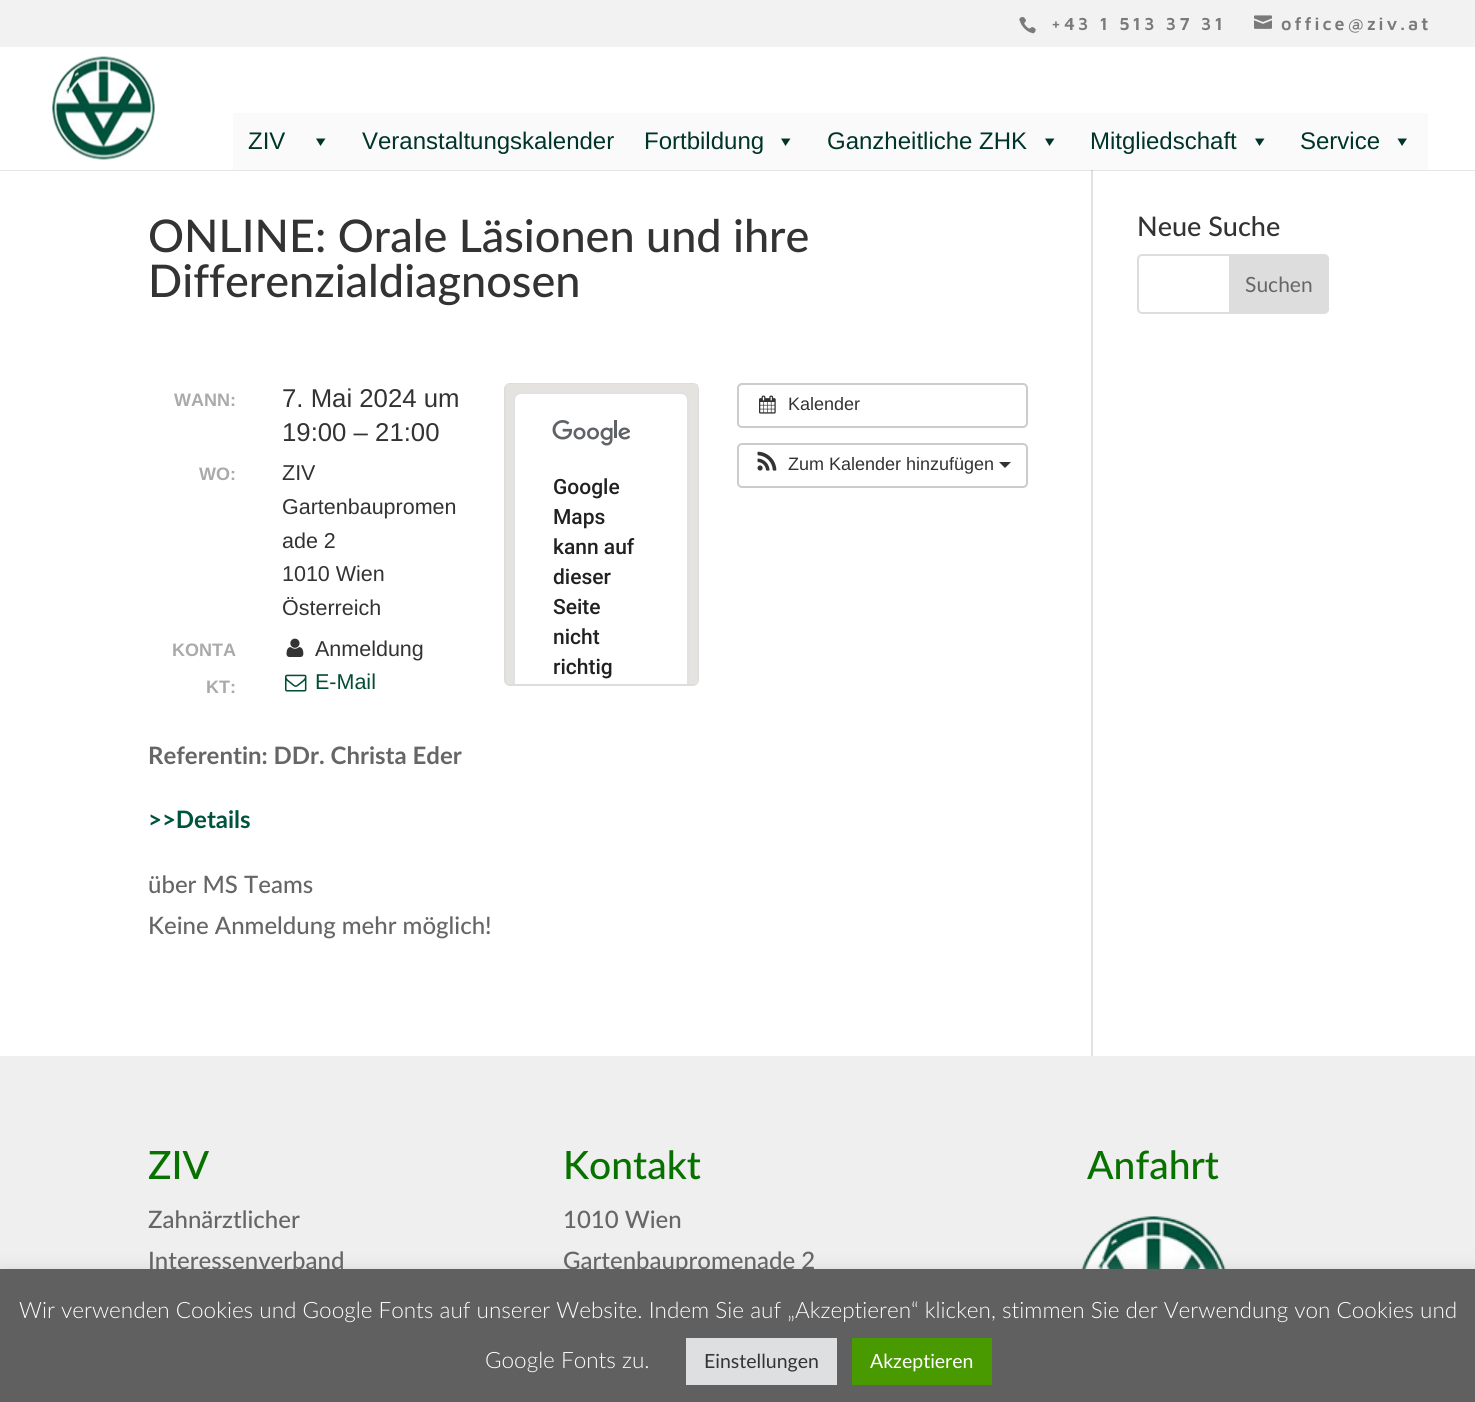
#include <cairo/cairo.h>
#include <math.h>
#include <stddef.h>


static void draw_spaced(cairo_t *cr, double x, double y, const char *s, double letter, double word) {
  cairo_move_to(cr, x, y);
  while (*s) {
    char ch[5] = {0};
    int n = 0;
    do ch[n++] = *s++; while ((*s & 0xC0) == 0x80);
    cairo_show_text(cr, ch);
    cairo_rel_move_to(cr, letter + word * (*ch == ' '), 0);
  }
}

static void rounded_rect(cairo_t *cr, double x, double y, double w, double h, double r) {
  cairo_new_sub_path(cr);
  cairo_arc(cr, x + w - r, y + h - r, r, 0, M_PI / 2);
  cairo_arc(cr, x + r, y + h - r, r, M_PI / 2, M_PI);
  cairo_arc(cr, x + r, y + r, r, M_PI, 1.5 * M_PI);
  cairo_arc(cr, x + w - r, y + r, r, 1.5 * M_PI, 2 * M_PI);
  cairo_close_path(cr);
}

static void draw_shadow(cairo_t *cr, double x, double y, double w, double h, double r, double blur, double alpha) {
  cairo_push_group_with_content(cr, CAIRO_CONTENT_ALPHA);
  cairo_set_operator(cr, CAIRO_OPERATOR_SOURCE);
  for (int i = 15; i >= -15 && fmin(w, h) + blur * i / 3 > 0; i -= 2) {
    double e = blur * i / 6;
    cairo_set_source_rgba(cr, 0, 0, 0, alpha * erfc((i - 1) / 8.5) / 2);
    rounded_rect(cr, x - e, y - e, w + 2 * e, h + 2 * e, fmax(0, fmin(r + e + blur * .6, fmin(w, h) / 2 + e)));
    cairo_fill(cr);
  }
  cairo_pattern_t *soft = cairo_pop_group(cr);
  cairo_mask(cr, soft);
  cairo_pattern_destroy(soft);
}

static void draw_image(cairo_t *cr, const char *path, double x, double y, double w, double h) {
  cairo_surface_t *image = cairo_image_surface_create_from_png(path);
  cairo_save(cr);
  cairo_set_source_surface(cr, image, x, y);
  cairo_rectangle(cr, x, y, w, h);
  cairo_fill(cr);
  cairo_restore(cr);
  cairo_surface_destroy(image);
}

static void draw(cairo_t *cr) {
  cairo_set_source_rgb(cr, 1, 1, 1);
  cairo_paint(cr);
  cairo_set_source_rgb(cr, 242 / 255.0, 242 / 255.0, 242 / 255.0);
  cairo_rectangle(cr, 0, 0, 1475, 47);
  cairo_fill(cr);
  draw_image(cr, "images/1.png", 1019, 16, 17, 18);
  draw_image(cr, "images/2.png", 1254, 15, 18, 14);
  draw_image(cr, "images/3.png", 52, 56, 103, 104);
  cairo_set_source_rgb(cr, 250 / 255.0, 250 / 255.0, 250 / 255.0);
  cairo_rectangle(cr, 233, 113, 1195, 57);
  cairo_fill(cr);
  cairo_set_source_rgb(cr, 0, 52 / 255.0, 40 / 255.0);
  cairo_new_path(cr);
  cairo_move_to(cr, 325.5, 138.5);
  cairo_line_to(cr, 320.5, 146);
  cairo_line_to(cr, 316, 138.5);
  cairo_close_path(cr);
  cairo_fill(cr);
  cairo_new_path(cr);
  cairo_move_to(cr, 790.5, 138.5);
  cairo_line_to(cr, 785.5, 146);
  cairo_line_to(cr, 781, 138.5);
  cairo_close_path(cr);
  cairo_fill(cr);
  cairo_new_path(cr);
  cairo_move_to(cr, 1054.5, 138.5);
  cairo_line_to(cr, 1049.5, 146);
  cairo_line_to(cr, 1045, 138.5);
  cairo_close_path(cr);
  cairo_fill(cr);
  cairo_new_path(cr);
  cairo_move_to(cr, 1264.5, 138.5);
  cairo_line_to(cr, 1259.5, 146);
  cairo_line_to(cr, 1255, 138.5);
  cairo_close_path(cr);
  cairo_fill(cr);
  cairo_new_path(cr);
  cairo_move_to(cr, 1407, 138.5);
  cairo_line_to(cr, 1402, 146);
  cairo_line_to(cr, 1397.5, 138.5);
  cairo_close_path(cr);
  cairo_fill(cr);
  cairo_set_source_rgb(cr, 230 / 255.0, 230 / 255.0, 230 / 255.0);
  cairo_rectangle(cr, 0, 170, 1475, 1);
  cairo_fill(cr);
  cairo_set_source_rgb(cr, 226 / 255.0, 226 / 255.0, 226 / 255.0);
  cairo_rectangle(cr, 1091, 171, 2, 885);
  cairo_fill(cr);
  cairo_set_source_rgb(cr, 203 / 255.0, 203 / 255.0, 203 / 255.0);
  cairo_rectangle(cr, 1091, 170, 2, 1);
  cairo_fill(cr);
  draw_image(cr, "images/4.png", 286, 638, 18, 19);
  draw_image(cr, "images/5.png", 285, 674, 22, 18);
  rounded_rect(cr, 505, 384, 193, 301, 5);
  cairo_set_source_rgb(cr, 221 / 255.0, 221 / 255.0, 221 / 255.0);
  cairo_stroke(cr);
  cairo_set_source_rgb(cr, 229 / 255.0, 227 / 255.0, 223 / 255.0);
  cairo_rectangle(cr, 506, 384, 192, 300);
  cairo_fill(cr);
  cairo_set_source_rgb(cr, 1, 1, 1);
  cairo_new_path(cr);
  cairo_move_to(cr, 521, 392);
  cairo_line_to(cr, 681, 392);
  cairo_curve_to(cr, 685.5, 392, 689, 395.5, 689, 400);
  cairo_line_to(cr, 689, 684);
  cairo_line_to(cr, 513, 684);
  cairo_line_to(cr, 513, 400);
  cairo_curve_to(cr, 513, 395.5, 516.5, 392, 521, 392);
  cairo_close_path(cr);
  cairo_fill(cr);
  cairo_save(cr);
  cairo_rectangle(cr, 506, 384, 192, 300);
  cairo_clip(cr);
  rounded_rect(cr, 514, 393, 174, 539, 7);
  cairo_set_source_rgba(cr, 0, 0, 0, 0.12);
  cairo_stroke(cr);
  cairo_restore(cr);
  draw_image(cr, "images/6.png", 552, 420, 78, 26);
  rounded_rect(cr, 738, 384, 289, 43, 4);
  cairo_set_source_rgb(cr, 204 / 255.0, 204 / 255.0, 204 / 255.0);
  cairo_stroke(cr);
  draw_image(cr, "images/7.png", 759, 395, 17, 19);
  rounded_rect(cr, 738, 444, 289, 43, 4);
  cairo_stroke(cr);
  draw_image(cr, "images/8.png", 757, 451, 20, 20);
  cairo_set_source_rgb(cr, 51 / 255.0, 51 / 255.0, 51 / 255.0);
  cairo_new_path(cr);
  cairo_move_to(cr, 999, 462);
  cairo_line_to(cr, 1011, 462);
  cairo_line_to(cr, 1005, 468);
  cairo_close_path(cr);
  cairo_fill(cr);
  rounded_rect(cr, 1138, 255, 190, 58, 4);
  cairo_set_source_rgb(cr, 221 / 255.0, 221 / 255.0, 221 / 255.0);
  cairo_stroke(cr);
  cairo_new_path(cr);
  cairo_move_to(cr, 1230, 255);
  cairo_line_to(cr, 1324, 255);
  cairo_curve_to(cr, 1326, 255, 1328, 257, 1328, 259);
  cairo_line_to(cr, 1328, 309);
  cairo_curve_to(cr, 1328, 311, 1326, 313, 1324, 313);
  cairo_line_to(cr, 1230, 313);
  cairo_close_path(cr);
  cairo_fill_preserve(cr);
  cairo_stroke(cr);
  cairo_set_source_rgb(cr, 239 / 255.0, 239 / 255.0, 239 / 255.0);
  cairo_rectangle(cr, 0, 1056, 1475, 213);
  cairo_fill(cr);
  draw_image(cr, "images/9.png", 1081, 1216, 145, 53);
  cairo_set_source_rgb(cr, 172 / 255.0, 171 / 255.0, 171 / 255.0);
  draw_shadow(cr, 0, 1268, 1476, 133, 0, 7.5, 0.3);
  cairo_select_font_face(cr, "Maven Pro SemiBold", CAIRO_FONT_SLANT_NORMAL, CAIRO_FONT_WEIGHT_NORMAL);
  cairo_set_font_size(cr, 18);
  cairo_set_source_rgb(cr, 122 / 255.0, 122 / 255.0, 122 / 255.0);
  draw_spaced(cr, 1051, 30, "+43 1 513 37 31", 3, 0);
  draw_spaced(cr, 1281, 30, "office@ziv.at", 3, 0);
  cairo_select_font_face(cr, "Liberation Sans", CAIRO_FONT_SLANT_NORMAL, CAIRO_FONT_WEIGHT_NORMAL);
  cairo_set_font_size(cr, 24);
  cairo_set_source_rgb(cr, 0, 52 / 255.0, 40 / 255.0);
  cairo_move_to(cr, 248, 149);
  cairo_show_text(cr, "ZIV");
  cairo_move_to(cr, 362, 149);
  cairo_show_text(cr, "Veranstaltungskalender");
  cairo_move_to(cr, 644, 149);
  cairo_show_text(cr, "Fortbildung");
  cairo_move_to(cr, 827, 149);
  cairo_show_text(cr, "Ganzheitliche ZHK");
  cairo_move_to(cr, 1090, 149);
  cairo_show_text(cr, "Mitgliedschaft");
  cairo_move_to(cr, 1300, 149);
  cairo_show_text(cr, "Service");
  cairo_select_font_face(cr, "Lato Medium", CAIRO_FONT_SLANT_NORMAL, CAIRO_FONT_WEIGHT_NORMAL);
  cairo_set_font_size(cr, 45);
  cairo_set_source_rgb(cr, 51 / 255.0, 51 / 255.0, 51 / 255.0);
  cairo_move_to(cr, 148, 252);
  cairo_show_text(cr, "ONLINE: Orale Läsionen und ihre");
  cairo_move_to(cr, 148, 297);
  cairo_show_text(cr, "Differenzialdiagnosen");
  cairo_select_font_face(cr, "Liberation Sans", CAIRO_FONT_SLANT_NORMAL, CAIRO_FONT_WEIGHT_BOLD);
  cairo_set_font_size(cr, 18);
  cairo_set_source_rgb(cr, 170 / 255.0, 170 / 255.0, 170 / 255.0);
  cairo_move_to(cr, 174, 406);
  cairo_show_text(cr, "WANN:");
  cairo_select_font_face(cr, "Liberation Sans", CAIRO_FONT_SLANT_NORMAL, CAIRO_FONT_WEIGHT_NORMAL);
  cairo_set_font_size(cr, 25.75);
  cairo_set_source_rgb(cr, 51 / 255.0, 51 / 255.0, 51 / 255.0);
  cairo_move_to(cr, 282, 407);
  cairo_show_text(cr, "7. Mai 2024 um");
  cairo_move_to(cr, 282, 441);
  cairo_show_text(cr, "19:00 – 21:00");
  cairo_select_font_face(cr, "Liberation Sans", CAIRO_FONT_SLANT_NORMAL, CAIRO_FONT_WEIGHT_BOLD);
  cairo_set_font_size(cr, 18);
  cairo_set_source_rgb(cr, 170 / 255.0, 170 / 255.0, 170 / 255.0);
  cairo_move_to(cr, 199, 480);
  cairo_show_text(cr, "WO:");
  cairo_select_font_face(cr, "Liberation Sans", CAIRO_FONT_SLANT_NORMAL, CAIRO_FONT_WEIGHT_NORMAL);
  cairo_set_font_size(cr, 21.5);
  cairo_set_source_rgb(cr, 51 / 255.0, 51 / 255.0, 51 / 255.0);
  cairo_move_to(cr, 282, 480);
  cairo_show_text(cr, "ZIV");
  cairo_move_to(cr, 282, 514);
  cairo_show_text(cr, "Gartenbaupromen");
  cairo_move_to(cr, 282, 548);
  cairo_show_text(cr, "ade 2");
  cairo_move_to(cr, 282, 581);
  cairo_show_text(cr, "1010 Wien");
  cairo_move_to(cr, 282, 615);
  cairo_show_text(cr, "Österreich");
  cairo_select_font_face(cr, "Liberation Sans", CAIRO_FONT_SLANT_NORMAL, CAIRO_FONT_WEIGHT_BOLD);
  cairo_set_font_size(cr, 18);
  cairo_set_source_rgb(cr, 170 / 255.0, 170 / 255.0, 170 / 255.0);
  cairo_move_to(cr, 172, 656);
  cairo_show_text(cr, "KONTA");
  cairo_move_to(cr, 206, 693);
  cairo_show_text(cr, "KT:");
  cairo_select_font_face(cr, "Liberation Sans", CAIRO_FONT_SLANT_NORMAL, CAIRO_FONT_WEIGHT_NORMAL);
  cairo_set_font_size(cr, 21.5);
  cairo_set_source_rgb(cr, 51 / 255.0, 51 / 255.0, 51 / 255.0);
  cairo_move_to(cr, 315, 656);
  cairo_show_text(cr, "Anmeldung");
  cairo_set_source_rgb(cr, 3 / 255.0, 76 / 255.0, 54 / 255.0);
  cairo_move_to(cr, 315, 689);
  cairo_show_text(cr, "E-Mail");
  cairo_select_font_face(cr, "Roboto Medium", CAIRO_FONT_SLANT_NORMAL, CAIRO_FONT_WEIGHT_NORMAL);
  cairo_set_font_size(cr, 21);
  cairo_set_source_rgb(cr, 33 / 255.0, 33 / 255.0, 33 / 255.0);
  cairo_move_to(cr, 553, 494);
  cairo_show_text(cr, "Google");
  cairo_move_to(cr, 553, 524);
  cairo_show_text(cr, "Maps");
  cairo_move_to(cr, 553, 554);
  cairo_show_text(cr, "kann auf");
  cairo_move_to(cr, 553, 584);
  cairo_show_text(cr, "dieser");
  cairo_move_to(cr, 553, 614);
  cairo_show_text(cr, "Seite");
  cairo_move_to(cr, 553, 644);
  cairo_show_text(cr, "nicht");
  cairo_move_to(cr, 553, 674);
  cairo_show_text(cr, "richtig");
  cairo_select_font_face(cr, "Liberation Sans", CAIRO_FONT_SLANT_NORMAL, CAIRO_FONT_WEIGHT_NORMAL);
  cairo_set_font_size(cr, 18);
  cairo_set_source_rgb(cr, 51 / 255.0, 51 / 255.0, 51 / 255.0);
  cairo_move_to(cr, 788, 410);
  cairo_show_text(cr, "Kalender");
  cairo_move_to(cr, 788, 470);
  cairo_show_text(cr, "Zum Kalender hinzufügen");
  cairo_select_font_face(cr, "Lato", CAIRO_FONT_SLANT_NORMAL, CAIRO_FONT_WEIGHT_BOLD);
  cairo_set_font_size(cr, 24);
  cairo_set_source_rgb(cr, 102 / 255.0, 102 / 255.0, 102 / 255.0);
  cairo_move_to(cr, 148, 764);
  cairo_show_text(cr, "Referentin: DDr. Christa Eder");
  cairo_set_source_rgb(cr, 0, 83 / 255.0, 61 / 255.0);
  cairo_move_to(cr, 148, 828);
  cairo_show_text(cr, ">>Details");
  cairo_select_font_face(cr, "Lato Medium", CAIRO_FONT_SLANT_NORMAL, CAIRO_FONT_WEIGHT_NORMAL);
  cairo_set_source_rgb(cr, 102 / 255.0, 102 / 255.0, 102 / 255.0);
  cairo_move_to(cr, 148, 893);
  cairo_show_text(cr, "über MS Teams");
  cairo_move_to(cr, 148, 934);
  cairo_show_text(cr, "Keine Anmeldung mehr möglich!");
  cairo_set_font_size(cr, 27);
  cairo_set_source_rgb(cr, 51 / 255.0, 51 / 255.0, 51 / 255.0);
  cairo_move_to(cr, 1137, 236);
  cairo_show_text(cr, "Neue Suche");
  cairo_select_font_face(cr, "Lato", CAIRO_FONT_SLANT_NORMAL, CAIRO_FONT_WEIGHT_NORMAL);
  cairo_set_font_size(cr, 21);
  cairo_set_source_rgb(cr, 102 / 255.0, 102 / 255.0, 102 / 255.0);
  cairo_move_to(cr, 1245, 292);
  cairo_show_text(cr, "Suchen");
  cairo_select_font_face(cr, "Lato Medium", CAIRO_FONT_SLANT_NORMAL, CAIRO_FONT_WEIGHT_NORMAL);
  cairo_set_font_size(cr, 39);
  cairo_set_source_rgb(cr, 8 / 255.0, 114 / 255.0, 1 / 255.0);
  cairo_move_to(cr, 148, 1179);
  cairo_show_text(cr, "ZIV");
  cairo_set_font_size(cr, 24);
  cairo_set_source_rgb(cr, 102 / 255.0, 102 / 255.0, 102 / 255.0);
  cairo_move_to(cr, 148, 1228);
  cairo_show_text(cr, "Zahnärztlicher");
  cairo_move_to(cr, 148, 1269);
  cairo_show_text(cr, "Interessenverband");
  cairo_set_font_size(cr, 39);
  cairo_set_source_rgb(cr, 8 / 255.0, 114 / 255.0, 1 / 255.0);
  cairo_move_to(cr, 563, 1179);
  cairo_show_text(cr, "Kontakt");
  cairo_set_font_size(cr, 24);
  cairo_set_source_rgb(cr, 102 / 255.0, 102 / 255.0, 102 / 255.0);
  cairo_move_to(cr, 563, 1228);
  cairo_show_text(cr, "1010 Wien");
  cairo_move_to(cr, 563, 1269);
  cairo_show_text(cr, "Gartenbaupromenade 2");
  cairo_set_font_size(cr, 39);
  cairo_set_source_rgb(cr, 8 / 255.0, 114 / 255.0, 1 / 255.0);
  cairo_move_to(cr, 1087, 1179);
  cairo_show_text(cr, "Anfahrt");
  cairo_set_source_rgb(cr, 96 / 255.0, 96 / 255.0, 96 / 255.0);
  cairo_rectangle(cr, 0, 1269, 1475, 133);
  cairo_fill(cr);
  cairo_select_font_face(cr, "Lato Light", CAIRO_FONT_SLANT_NORMAL, CAIRO_FONT_WEIGHT_NORMAL);
  cairo_set_font_size(cr, 22.5);
  cairo_set_source_rgb(cr, 1, 1, 1);
  cairo_move_to(cr, 19, 1318);
  cairo_show_text(cr, "Wir verwenden Cookies und Google Fonts auf unserer Website. Indem Sie auf „Akzeptieren“ klicken, stimmen Sie der Verwendung von Cookies und");
  cairo_move_to(cr, 485, 1368);
  cairo_show_text(cr, "Google Fonts zu.");
  cairo_set_source_rgb(cr, 222 / 255.0, 223 / 255.0, 224 / 255.0);
  cairo_rectangle(cr, 686, 1338, 151, 47);
  cairo_fill(cr);
  cairo_select_font_face(cr, "Lato", CAIRO_FONT_SLANT_NORMAL, CAIRO_FONT_WEIGHT_NORMAL);
  cairo_set_font_size(cr, 19.5);
  cairo_set_source_rgb(cr, 51 / 255.0, 51 / 255.0, 51 / 255.0);
  cairo_move_to(cr, 704, 1368);
  cairo_show_text(cr, "Einstellungen");
  cairo_set_source_rgb(cr, 73 / 255.0, 153 / 255.0, 0);
  cairo_rectangle(cr, 852, 1338, 140, 47);
  cairo_fill(cr);
  cairo_set_source_rgb(cr, 1, 1, 1);
  cairo_move_to(cr, 870, 1368);
  cairo_show_text(cr, "Akzeptieren");
}

int main(void) {
  cairo_surface_t *surface = cairo_image_surface_create(CAIRO_FORMAT_RGB24, 1475, 1402);
  cairo_t *cr = cairo_create(surface);
  cairo_font_options_t *options = cairo_font_options_create();
  cairo_font_options_set_hint_metrics(options, CAIRO_HINT_METRICS_OFF);
  cairo_font_options_set_hint_style(options, CAIRO_HINT_STYLE_NONE);
  cairo_set_font_options(cr, options);
  cairo_set_miter_limit(cr, 4);
  draw(cr);
  cairo_surface_write_to_png(surface, "out.png");
  cairo_font_options_destroy(options);
  cairo_destroy(cr);
  cairo_surface_destroy(surface);
  return 0;
}
